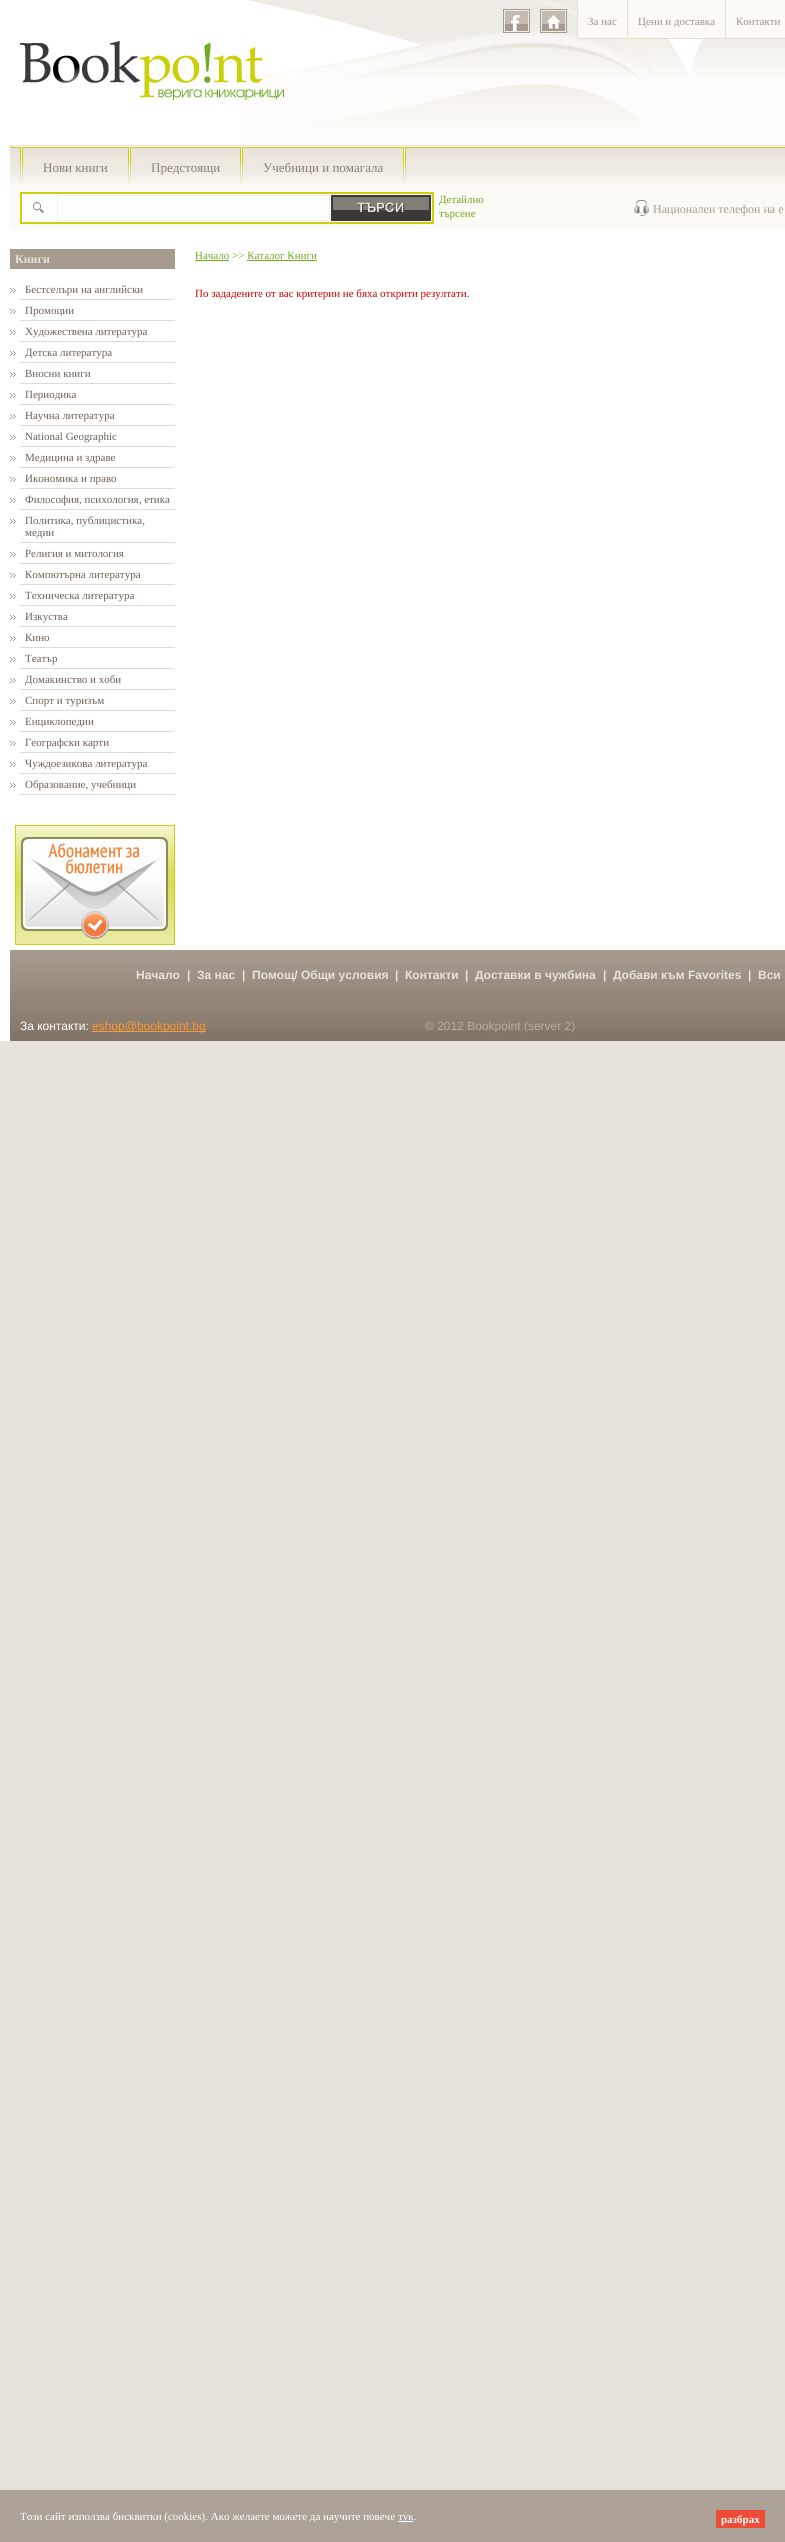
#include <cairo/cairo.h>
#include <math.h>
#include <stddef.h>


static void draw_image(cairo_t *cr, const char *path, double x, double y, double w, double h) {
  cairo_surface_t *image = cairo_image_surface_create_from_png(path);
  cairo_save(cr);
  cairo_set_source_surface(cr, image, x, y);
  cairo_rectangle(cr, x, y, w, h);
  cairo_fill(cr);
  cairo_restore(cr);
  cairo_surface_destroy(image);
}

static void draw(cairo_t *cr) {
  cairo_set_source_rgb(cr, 231 / 255.0, 226 / 255.0, 218 / 255.0);
  cairo_paint(cr);
  cairo_set_source_rgb(cr, 1, 1, 1);
  cairo_rectangle(cr, 0, 0, 785, 1041);
  cairo_fill(cr);
  draw_image(cr, "images/1.png", 241, 0, 544, 144);
  draw_image(cr, "images/2.png", 503, 9, 27, 24);
  draw_image(cr, "images/3.png", 540, 9, 27, 24);
  cairo_set_source_rgb(cr, 252 / 255.0, 250 / 255.0, 247 / 255.0);
  cairo_rectangle(cr, 578, 0, 49, 38);
  cairo_fill(cr);
  cairo_set_source_rgb(cr, 229 / 255.0, 224 / 255.0, 206 / 255.0);
  cairo_rectangle(cr, 577, 38, 208, 1);
  cairo_fill(cr);
  cairo_rectangle(cr, 577, 0, 1, 39);
  cairo_fill(cr);
  cairo_set_source_rgb(cr, 252 / 255.0, 250 / 255.0, 247 / 255.0);
  cairo_rectangle(cr, 628, 0, 97, 38);
  cairo_fill(cr);
  cairo_set_source_rgb(cr, 229 / 255.0, 224 / 255.0, 206 / 255.0);
  cairo_rectangle(cr, 627, 0, 1, 39);
  cairo_fill(cr);
  cairo_set_source_rgb(cr, 252 / 255.0, 250 / 255.0, 247 / 255.0);
  cairo_rectangle(cr, 726, 0, 59, 38);
  cairo_fill(cr);
  cairo_set_source_rgb(cr, 229 / 255.0, 224 / 255.0, 206 / 255.0);
  cairo_rectangle(cr, 725, 0, 1, 39);
  cairo_fill(cr);
  draw_image(cr, "images/4.png", 20, 41, 264, 59);
  cairo_set_source_rgb(cr, 251 / 255.0, 250 / 255.0, 244 / 255.0);
  cairo_rectangle(cr, 10, 183, 775, 46);
  cairo_fill(cr);
  draw_image(cr, "images/5.png", 10, 145, 775, 38);
  draw_image(cr, "images/6.png", 20, 147, 3, 39);
  draw_image(cr, "images/6.png", 128, 147, 3, 39);
  draw_image(cr, "images/6.png", 240, 147, 3, 39);
  draw_image(cr, "images/6.png", 403, 147, 3, 39);
  cairo_set_source_rgb(cr, 1, 1, 1);
  cairo_rectangle(cr, 21, 193, 412, 30);
  cairo_fill_preserve(cr);
  cairo_set_source_rgb(cr, 204 / 255.0, 208 / 255.0, 10 / 255.0);
  cairo_stroke(cr);
  draw_image(cr, "images/7.png", 33, 202, 11, 12);
  cairo_rectangle(cr, 57.5, 195.5, 272, 25);
  cairo_set_source_rgb(cr, 238 / 255.0, 238 / 255.0, 238 / 255.0);
  cairo_set_line_width(cr, 1);
  cairo_stroke(cr);
  draw_image(cr, "images/8.png", 331, 195, 100, 26);
  draw_image(cr, "images/9.png", 634, 200, 16, 16);
  cairo_set_source_rgb(cr, 167 / 255.0, 155 / 255.0, 143 / 255.0);
  cairo_rectangle(cr, 10, 249, 165, 20);
  cairo_fill(cr);
  draw_image(cr, "images/10.png", 10, 288, 6, 5);
  cairo_set_source_rgb(cr, 224 / 255.0, 219 / 255.0, 215 / 255.0);
  cairo_rectangle(cr, 20, 299, 155, 1);
  cairo_fill(cr);
  draw_image(cr, "images/10.png", 10, 309, 6, 5);
  cairo_rectangle(cr, 20, 320, 155, 1);
  cairo_fill(cr);
  draw_image(cr, "images/10.png", 10, 330, 6, 5);
  cairo_rectangle(cr, 20, 341, 155, 1);
  cairo_fill(cr);
  draw_image(cr, "images/10.png", 10, 351, 6, 5);
  cairo_rectangle(cr, 20, 362, 155, 1);
  cairo_fill(cr);
  draw_image(cr, "images/10.png", 10, 372, 6, 5);
  cairo_rectangle(cr, 20, 383, 155, 1);
  cairo_fill(cr);
  draw_image(cr, "images/10.png", 10, 393, 6, 5);
  cairo_rectangle(cr, 20, 404, 155, 1);
  cairo_fill(cr);
  draw_image(cr, "images/10.png", 10, 414, 6, 5);
  cairo_rectangle(cr, 20, 425, 155, 1);
  cairo_fill(cr);
  draw_image(cr, "images/10.png", 10, 435, 6, 5);
  cairo_rectangle(cr, 20, 446, 155, 1);
  cairo_fill(cr);
  draw_image(cr, "images/10.png", 10, 456, 6, 5);
  cairo_rectangle(cr, 20, 467, 155, 1);
  cairo_fill(cr);
  draw_image(cr, "images/10.png", 10, 477, 6, 5);
  cairo_rectangle(cr, 20, 488, 155, 1);
  cairo_fill(cr);
  draw_image(cr, "images/10.png", 10, 498, 6, 5);
  cairo_rectangle(cr, 20, 509, 155, 1);
  cairo_fill(cr);
  draw_image(cr, "images/10.png", 10, 519, 6, 5);
  cairo_rectangle(cr, 20, 542, 155, 1);
  cairo_fill(cr);
  draw_image(cr, "images/10.png", 10, 552, 6, 5);
  cairo_rectangle(cr, 20, 563, 155, 1);
  cairo_fill(cr);
  draw_image(cr, "images/10.png", 10, 573, 6, 5);
  cairo_rectangle(cr, 20, 584, 155, 1);
  cairo_fill(cr);
  draw_image(cr, "images/10.png", 10, 594, 6, 5);
  cairo_rectangle(cr, 20, 605, 155, 1);
  cairo_fill(cr);
  draw_image(cr, "images/10.png", 10, 615, 6, 5);
  cairo_rectangle(cr, 20, 626, 155, 1);
  cairo_fill(cr);
  draw_image(cr, "images/10.png", 10, 636, 6, 5);
  cairo_rectangle(cr, 20, 647, 155, 1);
  cairo_fill(cr);
  draw_image(cr, "images/10.png", 10, 657, 6, 5);
  cairo_rectangle(cr, 20, 668, 155, 1);
  cairo_fill(cr);
  draw_image(cr, "images/10.png", 10, 678, 6, 5);
  cairo_rectangle(cr, 20, 689, 155, 1);
  cairo_fill(cr);
  draw_image(cr, "images/10.png", 10, 699, 6, 5);
  cairo_rectangle(cr, 20, 710, 155, 1);
  cairo_fill(cr);
  draw_image(cr, "images/10.png", 10, 720, 6, 5);
  cairo_rectangle(cr, 20, 731, 155, 1);
  cairo_fill(cr);
  draw_image(cr, "images/10.png", 10, 741, 6, 5);
  cairo_rectangle(cr, 20, 752, 155, 1);
  cairo_fill(cr);
  draw_image(cr, "images/10.png", 10, 762, 6, 5);
  cairo_rectangle(cr, 20, 773, 155, 1);
  cairo_fill(cr);
  draw_image(cr, "images/10.png", 10, 783, 6, 5);
  cairo_rectangle(cr, 20, 794, 155, 1);
  cairo_fill(cr);
  draw_image(cr, "images/11.png", 15, 825, 160, 120);
  cairo_set_source_rgb(cr, 110 / 255.0, 171 / 255.0, 35 / 255.0);
  cairo_rectangle(cr, 195, 260, 34, 1);
  cairo_fill(cr);
  cairo_rectangle(cr, 247, 260, 70, 1);
  cairo_fill(cr);
  cairo_set_source_rgb(cr, 131 / 255.0, 117 / 255.0, 103 / 255.0);
  cairo_rectangle(cr, 10, 1031, 775, 10);
  cairo_fill(cr);
  draw_image(cr, "images/12.png", 10, 950, 775, 81);
  cairo_set_source_rgb(cr, 1, 153 / 255.0, 51 / 255.0);
  cairo_rectangle(cr, 92, 1031, 114, 1);
  cairo_fill(cr);
  cairo_set_source_rgb(cr, 173 / 255.0, 162 / 255.0, 151 / 255.0);
  cairo_rectangle(cr, 0, 2490, 785, 52);
  cairo_fill(cr);
  cairo_set_source_rgb(cr, 253 / 255.0, 252 / 255.0, 251 / 255.0);
  cairo_rectangle(cr, 398, 2521, 15, 1);
  cairo_fill(cr);
  cairo_set_source_rgb(cr, 238 / 255.0, 76 / 255.0, 56 / 255.0);
  cairo_rectangle(cr, 716, 2510, 49, 18);
  cairo_fill(cr);
  cairo_select_font_face(cr, "Liberation Serif", CAIRO_FONT_SLANT_NORMAL, CAIRO_FONT_WEIGHT_NORMAL);
  cairo_set_font_size(cr, 11);
  cairo_set_source_rgb(cr, 159 / 255.0, 147 / 255.0, 133 / 255.0);
  cairo_move_to(cr, 588, 25);
  cairo_show_text(cr, "За нас");
  cairo_move_to(cr, 638, 25);
  cairo_show_text(cr, "Цени и доставка");
  cairo_move_to(cr, 736, 25);
  cairo_show_text(cr, "Контакти");
  cairo_set_font_size(cr, 13);
  cairo_set_source_rgb(cr, 140 / 255.0, 128 / 255.0, 117 / 255.0);
  cairo_move_to(cr, 43, 172);
  cairo_show_text(cr, "Нови книги");
  cairo_move_to(cr, 151, 172);
  cairo_show_text(cr, "Предстоящи");
  cairo_move_to(cr, 263, 172);
  cairo_show_text(cr, "Учебници и помагала");
  cairo_set_font_size(cr, 11);
  cairo_set_source_rgb(cr, 110 / 255.0, 171 / 255.0, 35 / 255.0);
  cairo_move_to(cr, 439, 203);
  cairo_show_text(cr, "Детайлно");
  cairo_move_to(cr, 439, 217);
  cairo_show_text(cr, "търсене");
  cairo_set_font_size(cr, 12);
  cairo_set_source_rgb(cr, 167 / 255.0, 155 / 255.0, 143 / 255.0);
  cairo_move_to(cr, 653, 213);
  cairo_show_text(cr, "Национален телефон на е");
  cairo_select_font_face(cr, "Liberation Serif", CAIRO_FONT_SLANT_NORMAL, CAIRO_FONT_WEIGHT_BOLD);
  cairo_set_source_rgb(cr, 231 / 255.0, 226 / 255.0, 218 / 255.0);
  cairo_move_to(cr, 15, 263);
  cairo_show_text(cr, "Книги");
  cairo_select_font_face(cr, "Liberation Serif", CAIRO_FONT_SLANT_NORMAL, CAIRO_FONT_WEIGHT_NORMAL);
  cairo_set_font_size(cr, 11);
  cairo_set_source_rgb(cr, 108 / 255.0, 97 / 255.0, 85 / 255.0);
  cairo_move_to(cr, 25, 293);
  cairo_show_text(cr, "Бестселъри на английски");
  cairo_move_to(cr, 25, 314);
  cairo_show_text(cr, "Промоции");
  cairo_move_to(cr, 25, 335);
  cairo_show_text(cr, "Художествена литература");
  cairo_move_to(cr, 25, 356);
  cairo_show_text(cr, "Детска литература");
  cairo_move_to(cr, 25, 377);
  cairo_show_text(cr, "Вносни книги");
  cairo_move_to(cr, 25, 398);
  cairo_show_text(cr, "Периодика");
  cairo_move_to(cr, 25, 419);
  cairo_show_text(cr, "Научна литература");
  cairo_move_to(cr, 25, 440);
  cairo_show_text(cr, "National Geographic");
  cairo_move_to(cr, 25, 461);
  cairo_show_text(cr, "Медицина и здраве");
  cairo_move_to(cr, 25, 482);
  cairo_show_text(cr, "Икономика и право");
  cairo_move_to(cr, 25, 503);
  cairo_show_text(cr, "Философия, психология, етика");
  cairo_move_to(cr, 25, 524);
  cairo_show_text(cr, "Политика, публицистика,");
  cairo_move_to(cr, 25, 536);
  cairo_show_text(cr, "медии");
  cairo_move_to(cr, 25, 557);
  cairo_show_text(cr, "Религия и митология");
  cairo_move_to(cr, 25, 578);
  cairo_show_text(cr, "Компютърна литература");
  cairo_move_to(cr, 25, 599);
  cairo_show_text(cr, "Техническа литература");
  cairo_move_to(cr, 25, 620);
  cairo_show_text(cr, "Изкуства");
  cairo_move_to(cr, 25, 641);
  cairo_show_text(cr, "Кино");
  cairo_move_to(cr, 25, 662);
  cairo_show_text(cr, "Театър");
  cairo_move_to(cr, 25, 683);
  cairo_show_text(cr, "Домакинство и хоби");
  cairo_move_to(cr, 25, 704);
  cairo_show_text(cr, "Спорт и туризъм");
  cairo_move_to(cr, 25, 725);
  cairo_show_text(cr, "Енциклопедии");
  cairo_move_to(cr, 25, 746);
  cairo_show_text(cr, "Географски карти");
  cairo_move_to(cr, 25, 767);
  cairo_show_text(cr, "Чуждоезикова литература");
  cairo_move_to(cr, 25, 788);
  cairo_show_text(cr, "Образование, учебници");
  cairo_set_source_rgb(cr, 110 / 255.0, 171 / 255.0, 35 / 255.0);
  cairo_move_to(cr, 195, 259);
  cairo_show_text(cr, "Начало >> Каталог Книги");
  cairo_set_source_rgb(cr, 204 / 255.0, 0, 0);
  cairo_move_to(cr, 195, 297);
  cairo_show_text(cr, "По зададените от вас критерии не бяха открити резултати.");
  cairo_select_font_face(cr, "Liberation Sans", CAIRO_FONT_SLANT_NORMAL, CAIRO_FONT_WEIGHT_BOLD);
  cairo_set_font_size(cr, 12);
  cairo_set_source_rgb(cr, 231 / 255.0, 226 / 255.0, 218 / 255.0);
  cairo_move_to(cr, 136, 979);
  cairo_show_text(cr, "Начало");
  cairo_move_to(cr, 187, 979);
  cairo_show_text(cr, "|");
  cairo_move_to(cr, 197, 979);
  cairo_show_text(cr, "За нас");
  cairo_move_to(cr, 242, 979);
  cairo_show_text(cr, "|");
  cairo_move_to(cr, 252, 979);
  cairo_show_text(cr, "Помощ/ Общи условия");
  cairo_move_to(cr, 395, 979);
  cairo_show_text(cr, "|");
  cairo_move_to(cr, 405, 979);
  cairo_show_text(cr, "Контакти");
  cairo_move_to(cr, 465, 979);
  cairo_show_text(cr, "|");
  cairo_move_to(cr, 475, 979);
  cairo_show_text(cr, "Доставки в чужбина");
  cairo_move_to(cr, 603, 979);
  cairo_show_text(cr, "|");
  cairo_move_to(cr, 613, 979);
  cairo_show_text(cr, "Добави към Favorites");
  cairo_move_to(cr, 748, 979);
  cairo_show_text(cr, "|");
  cairo_move_to(cr, 758, 979);
  cairo_show_text(cr, "Вси");
  cairo_select_font_face(cr, "Liberation Sans", CAIRO_FONT_SLANT_NORMAL, CAIRO_FONT_WEIGHT_NORMAL);
  cairo_set_source_rgb(cr, 1, 1, 1);
  cairo_move_to(cr, 20, 1030);
  cairo_show_text(cr, "За контакти:");
  cairo_set_source_rgb(cr, 1, 153 / 255.0, 51 / 255.0);
  cairo_move_to(cr, 92, 1030);
  cairo_show_text(cr, "eshop@bookpoint.bg");
  cairo_set_source_rgb(cr, 184 / 255.0, 174 / 255.0, 163 / 255.0);
  cairo_move_to(cr, 425, 1030);
  cairo_show_text(cr, "© 2012 Bookpoint (server 2)");
  cairo_select_font_face(cr, "Liberation Serif", CAIRO_FONT_SLANT_NORMAL, CAIRO_FONT_WEIGHT_NORMAL);
  cairo_set_font_size(cr, 11);
  cairo_set_source_rgb(cr, 1, 1, 1);
  cairo_move_to(cr, 20, 2520);
  cairo_show_text(cr, "Този сайт използва бисквитки (cookies). Ако желаете можете да научите повече");
  cairo_move_to(cr, 398, 2520);
  cairo_show_text(cr, "тук.");
  cairo_select_font_face(cr, "Liberation Serif", CAIRO_FONT_SLANT_NORMAL, CAIRO_FONT_WEIGHT_BOLD);
  cairo_move_to(cr, 721, 2523);
  cairo_show_text(cr, "разбрах");
}

int main(void) {
  cairo_surface_t *surface = cairo_image_surface_create(CAIRO_FORMAT_RGB24, 785, 2542);
  cairo_t *cr = cairo_create(surface);
  cairo_font_options_t *options = cairo_font_options_create();
  cairo_font_options_set_hint_metrics(options, CAIRO_HINT_METRICS_OFF);
  cairo_font_options_set_hint_style(options, CAIRO_HINT_STYLE_NONE);
  cairo_set_font_options(cr, options);
  cairo_set_miter_limit(cr, 4);
  draw(cr);
  cairo_surface_write_to_png(surface, "out.png");
  cairo_font_options_destroy(options);
  cairo_destroy(cr);
  cairo_surface_destroy(surface);
  return 0;
}
